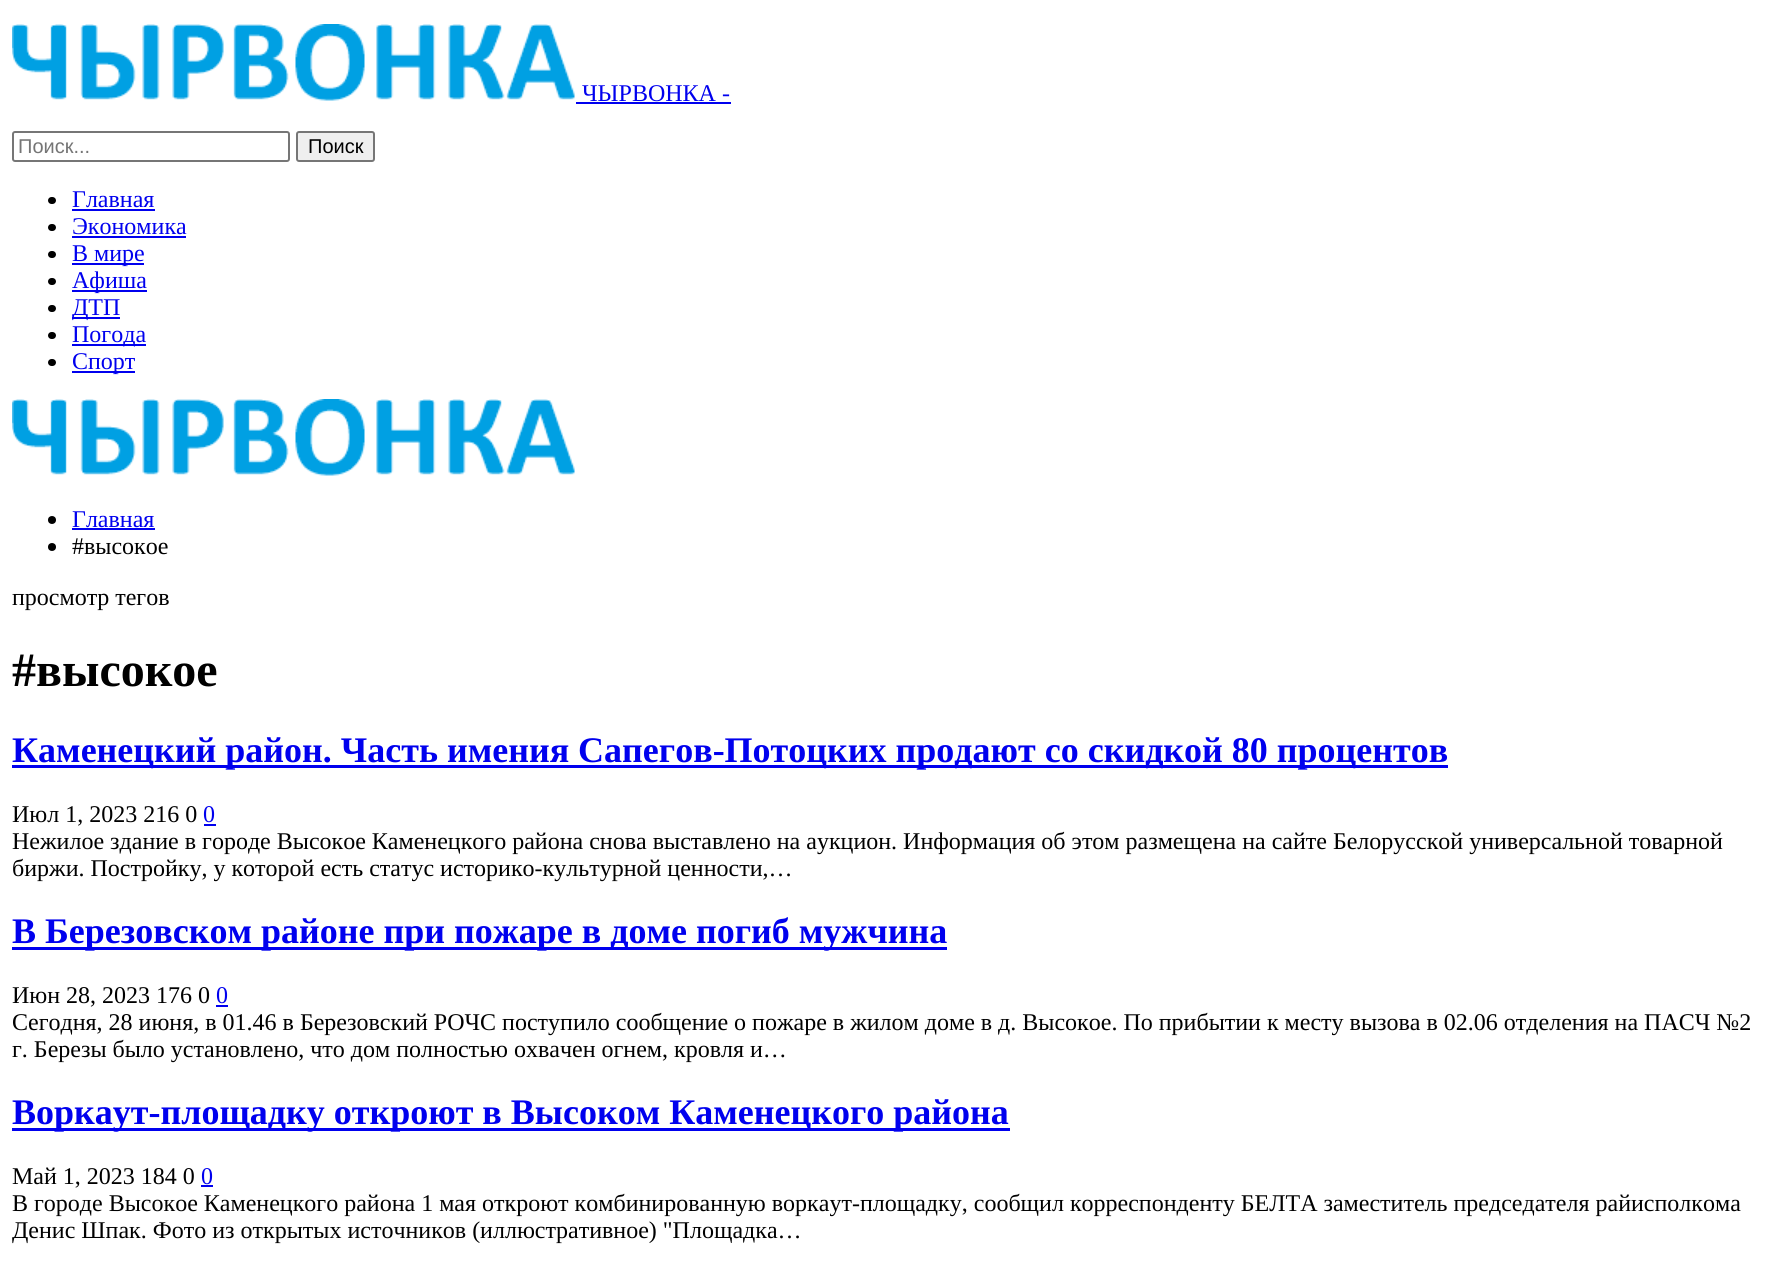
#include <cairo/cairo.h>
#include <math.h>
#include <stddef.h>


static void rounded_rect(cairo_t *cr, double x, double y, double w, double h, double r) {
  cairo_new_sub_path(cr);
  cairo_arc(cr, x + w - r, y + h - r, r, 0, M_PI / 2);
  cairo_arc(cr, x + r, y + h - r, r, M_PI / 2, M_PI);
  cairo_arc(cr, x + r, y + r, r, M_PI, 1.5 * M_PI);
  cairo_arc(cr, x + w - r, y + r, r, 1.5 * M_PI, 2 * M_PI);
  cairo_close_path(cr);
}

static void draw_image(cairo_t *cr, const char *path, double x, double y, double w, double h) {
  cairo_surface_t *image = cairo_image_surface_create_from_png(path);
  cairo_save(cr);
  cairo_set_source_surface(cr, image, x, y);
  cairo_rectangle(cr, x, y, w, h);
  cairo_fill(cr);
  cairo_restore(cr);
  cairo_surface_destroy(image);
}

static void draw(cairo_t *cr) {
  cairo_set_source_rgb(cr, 1, 1, 1);
  cairo_paint(cr);
  draw_image(cr, "images/1.png", 12, 24, 563, 77);
  cairo_set_source_rgb(cr, 0, 0, 238 / 255.0);
  cairo_rectangle(cr, 576, 102, 155, 2);
  cairo_fill(cr);
  rounded_rect(cr, 13, 132, 276, 29, 2);
  cairo_set_source_rgb(cr, 118 / 255.0, 118 / 255.0, 118 / 255.0);
  cairo_stroke(cr);
  cairo_set_source_rgb(cr, 239 / 255.0, 239 / 255.0, 239 / 255.0);
  rounded_rect(cr, 297, 132, 77, 29, 2);
  cairo_fill_preserve(cr);
  cairo_set_source_rgb(cr, 118 / 255.0, 118 / 255.0, 118 / 255.0);
  cairo_stroke(cr);
  cairo_set_source_rgb(cr, 0, 0, 0);
  rounded_rect(cr, 48, 197, 8, 7, 3.5);
  cairo_fill(cr);
  cairo_set_source_rgb(cr, 0, 0, 238 / 255.0);
  cairo_rectangle(cr, 72, 209, 83, 2);
  cairo_fill(cr);
  cairo_set_source_rgb(cr, 0, 0, 0);
  rounded_rect(cr, 48, 224, 8, 7, 3.5);
  cairo_fill(cr);
  cairo_set_source_rgb(cr, 0, 0, 238 / 255.0);
  cairo_rectangle(cr, 72, 236, 114, 2);
  cairo_fill(cr);
  cairo_set_source_rgb(cr, 0, 0, 0);
  rounded_rect(cr, 48, 251, 8, 7, 3.5);
  cairo_fill(cr);
  cairo_set_source_rgb(cr, 0, 0, 238 / 255.0);
  cairo_rectangle(cr, 72, 263, 72, 2);
  cairo_fill(cr);
  cairo_set_source_rgb(cr, 0, 0, 0);
  rounded_rect(cr, 48, 278, 8, 7, 3.5);
  cairo_fill(cr);
  cairo_set_source_rgb(cr, 0, 0, 238 / 255.0);
  cairo_rectangle(cr, 72, 290, 75, 2);
  cairo_fill(cr);
  cairo_set_source_rgb(cr, 0, 0, 0);
  rounded_rect(cr, 48, 305, 8, 7, 3.5);
  cairo_fill(cr);
  cairo_set_source_rgb(cr, 0, 0, 238 / 255.0);
  cairo_rectangle(cr, 72, 317, 48, 2);
  cairo_fill(cr);
  cairo_set_source_rgb(cr, 0, 0, 0);
  rounded_rect(cr, 48, 332, 8, 7, 3.5);
  cairo_fill(cr);
  cairo_set_source_rgb(cr, 0, 0, 238 / 255.0);
  cairo_rectangle(cr, 72, 344, 74, 2);
  cairo_fill(cr);
  cairo_set_source_rgb(cr, 0, 0, 0);
  rounded_rect(cr, 48, 359, 8, 7, 3.5);
  cairo_fill(cr);
  cairo_set_source_rgb(cr, 0, 0, 238 / 255.0);
  cairo_rectangle(cr, 72, 371, 63, 2);
  cairo_fill(cr);
  draw_image(cr, "images/1.png", 12, 399, 563, 77);
  cairo_set_source_rgb(cr, 0, 0, 0);
  cairo_arc(cr, 52, 520, 4, 0, 2 * M_PI);
  cairo_fill(cr);
  cairo_set_source_rgb(cr, 0, 0, 238 / 255.0);
  cairo_rectangle(cr, 72, 528, 83, 2);
  cairo_fill(cr);
  cairo_set_source_rgb(cr, 0, 0, 0);
  cairo_arc(cr, 52, 547, 4, 0, 2 * M_PI);
  cairo_fill(cr);
  cairo_set_source_rgb(cr, 0, 0, 238 / 255.0);
  cairo_rectangle(cr, 12, 765, 1436, 3);
  cairo_fill(cr);
  cairo_rectangle(cr, 204, 824, 12, 2);
  cairo_fill(cr);
  cairo_rectangle(cr, 12, 947, 935, 3);
  cairo_fill(cr);
  cairo_rectangle(cr, 216, 1005, 12, 2);
  cairo_fill(cr);
  cairo_rectangle(cr, 12, 1128, 998, 3);
  cairo_fill(cr);
  cairo_rectangle(cr, 201, 1185, 12, 2);
  cairo_fill(cr);
  cairo_select_font_face(cr, "Liberation Serif", CAIRO_FONT_SLANT_NORMAL, CAIRO_FONT_WEIGHT_NORMAL);
  cairo_set_font_size(cr, 24);
  cairo_move_to(cr, 582, 101);
  cairo_show_text(cr, "ЧЫРВОНКА -");
  cairo_select_font_face(cr, "Liberation Sans", CAIRO_FONT_SLANT_NORMAL, CAIRO_FONT_WEIGHT_NORMAL);
  cairo_set_font_size(cr, 20);
  cairo_set_source_rgb(cr, 117 / 255.0, 117 / 255.0, 117 / 255.0);
  cairo_move_to(cr, 18, 153);
  cairo_show_text(cr, "Поиск...");
  cairo_set_source_rgb(cr, 0, 0, 0);
  cairo_move_to(cr, 308, 153);
  cairo_show_text(cr, "Поиск");
  cairo_select_font_face(cr, "Liberation Serif", CAIRO_FONT_SLANT_NORMAL, CAIRO_FONT_WEIGHT_NORMAL);
  cairo_set_font_size(cr, 24);
  cairo_set_source_rgb(cr, 0, 0, 238 / 255.0);
  cairo_move_to(cr, 72, 207);
  cairo_show_text(cr, "Главная");
  cairo_move_to(cr, 72, 234);
  cairo_show_text(cr, "Экономика");
  cairo_move_to(cr, 72, 261);
  cairo_show_text(cr, "В мире");
  cairo_move_to(cr, 72, 288);
  cairo_show_text(cr, "Афиша");
  cairo_move_to(cr, 72, 315);
  cairo_show_text(cr, "ДТП");
  cairo_move_to(cr, 72, 342);
  cairo_show_text(cr, "Погода");
  cairo_move_to(cr, 72, 369);
  cairo_show_text(cr, "Спорт");
  cairo_move_to(cr, 72, 527);
  cairo_show_text(cr, "Главная");
  cairo_set_source_rgb(cr, 0, 0, 0);
  cairo_move_to(cr, 72, 554);
  cairo_show_text(cr, "#высокое");
  cairo_move_to(cr, 12, 605);
  cairo_show_text(cr, "просмотр тегов");
  cairo_select_font_face(cr, "Liberation Serif", CAIRO_FONT_SLANT_NORMAL, CAIRO_FONT_WEIGHT_BOLD);
  cairo_set_font_size(cr, 48);
  cairo_move_to(cr, 12, 686);
  cairo_show_text(cr, "#высокое");
  cairo_set_font_size(cr, 36);
  cairo_set_source_rgb(cr, 0, 0, 238 / 255.0);
  cairo_move_to(cr, 12, 762);
  cairo_show_text(cr, "Каменецкий район. Часть имения Сапегов-Потоцких продают со скидкой 80 процентов");
  cairo_select_font_face(cr, "Liberation Serif", CAIRO_FONT_SLANT_NORMAL, CAIRO_FONT_WEIGHT_NORMAL);
  cairo_set_font_size(cr, 24);
  cairo_set_source_rgb(cr, 0, 0, 0);
  cairo_move_to(cr, 12, 822);
  cairo_show_text(cr, "Июл 1, 2023 216 0");
  cairo_set_source_rgb(cr, 0, 0, 238 / 255.0);
  cairo_move_to(cr, 203, 822);
  cairo_show_text(cr, "0");
  cairo_set_source_rgb(cr, 0, 0, 0);
  cairo_move_to(cr, 12, 849);
  cairo_show_text(cr, "Нежилое здание в городе Высокое Каменецкого района снова выставлено на аукцион. Информация об этом размещена на сайте Белорусской универсальной товарной");
  cairo_move_to(cr, 12, 876);
  cairo_show_text(cr, "биржи. Постройку, у которой есть статус историко-культурной ценности,…");
  cairo_select_font_face(cr, "Liberation Serif", CAIRO_FONT_SLANT_NORMAL, CAIRO_FONT_WEIGHT_BOLD);
  cairo_set_font_size(cr, 36);
  cairo_set_source_rgb(cr, 0, 0, 238 / 255.0);
  cairo_move_to(cr, 12, 943);
  cairo_show_text(cr, "В Березовском районе при пожаре в доме погиб мужчина");
  cairo_select_font_face(cr, "Liberation Serif", CAIRO_FONT_SLANT_NORMAL, CAIRO_FONT_WEIGHT_NORMAL);
  cairo_set_font_size(cr, 24);
  cairo_set_source_rgb(cr, 0, 0, 0);
  cairo_move_to(cr, 12, 1003);
  cairo_show_text(cr, "Июн 28, 2023 176 0");
  cairo_set_source_rgb(cr, 0, 0, 238 / 255.0);
  cairo_move_to(cr, 216, 1003);
  cairo_show_text(cr, "0");
  cairo_set_source_rgb(cr, 0, 0, 0);
  cairo_move_to(cr, 12, 1030);
  cairo_show_text(cr, "Сегодня, 28 июня, в 01.46 в Березовский РОЧС поступило сообщение о пожаре в жилом доме в д. Высокое. По прибытии к месту вызова в 02.06 отделения на ПАСЧ №2");
  cairo_move_to(cr, 12, 1057);
  cairo_show_text(cr, "г. Березы было установлено, что дом полностью охвачен огнем, кровля и…");
  cairo_select_font_face(cr, "Liberation Serif", CAIRO_FONT_SLANT_NORMAL, CAIRO_FONT_WEIGHT_BOLD);
  cairo_set_font_size(cr, 36);
  cairo_set_source_rgb(cr, 0, 0, 238 / 255.0);
  cairo_move_to(cr, 12, 1124);
  cairo_show_text(cr, "Воркаут-площадку откроют в Высоком Каменецкого района");
  cairo_select_font_face(cr, "Liberation Serif", CAIRO_FONT_SLANT_NORMAL, CAIRO_FONT_WEIGHT_NORMAL);
  cairo_set_font_size(cr, 24);
  cairo_set_source_rgb(cr, 0, 0, 0);
  cairo_move_to(cr, 12, 1184);
  cairo_show_text(cr, "Май 1, 2023 184 0");
  cairo_set_source_rgb(cr, 0, 0, 238 / 255.0);
  cairo_move_to(cr, 201, 1184);
  cairo_show_text(cr, "0");
  cairo_set_source_rgb(cr, 0, 0, 0);
  cairo_move_to(cr, 12, 1211);
  cairo_show_text(cr, "В городе Высокое Каменецкого района 1 мая откроют комбинированную воркаут-площадку, сообщил корреспонденту БЕЛТА заместитель председателя райисполкома");
  cairo_move_to(cr, 12, 1238);
  cairo_show_text(cr, "Денис Шпак. Фото из открытых источников (иллюстративное) \"Площадка…");
}

int main(void) {
  cairo_surface_t *surface = cairo_image_surface_create(CAIRO_FORMAT_RGB24, 1771, 1285);
  cairo_t *cr = cairo_create(surface);
  cairo_font_options_t *options = cairo_font_options_create();
  cairo_font_options_set_hint_metrics(options, CAIRO_HINT_METRICS_OFF);
  cairo_font_options_set_hint_style(options, CAIRO_HINT_STYLE_NONE);
  cairo_set_font_options(cr, options);
  cairo_set_miter_limit(cr, 4);
  draw(cr);
  cairo_surface_write_to_png(surface, "out.png");
  cairo_font_options_destroy(options);
  cairo_destroy(cr);
  cairo_surface_destroy(surface);
  return 0;
}
